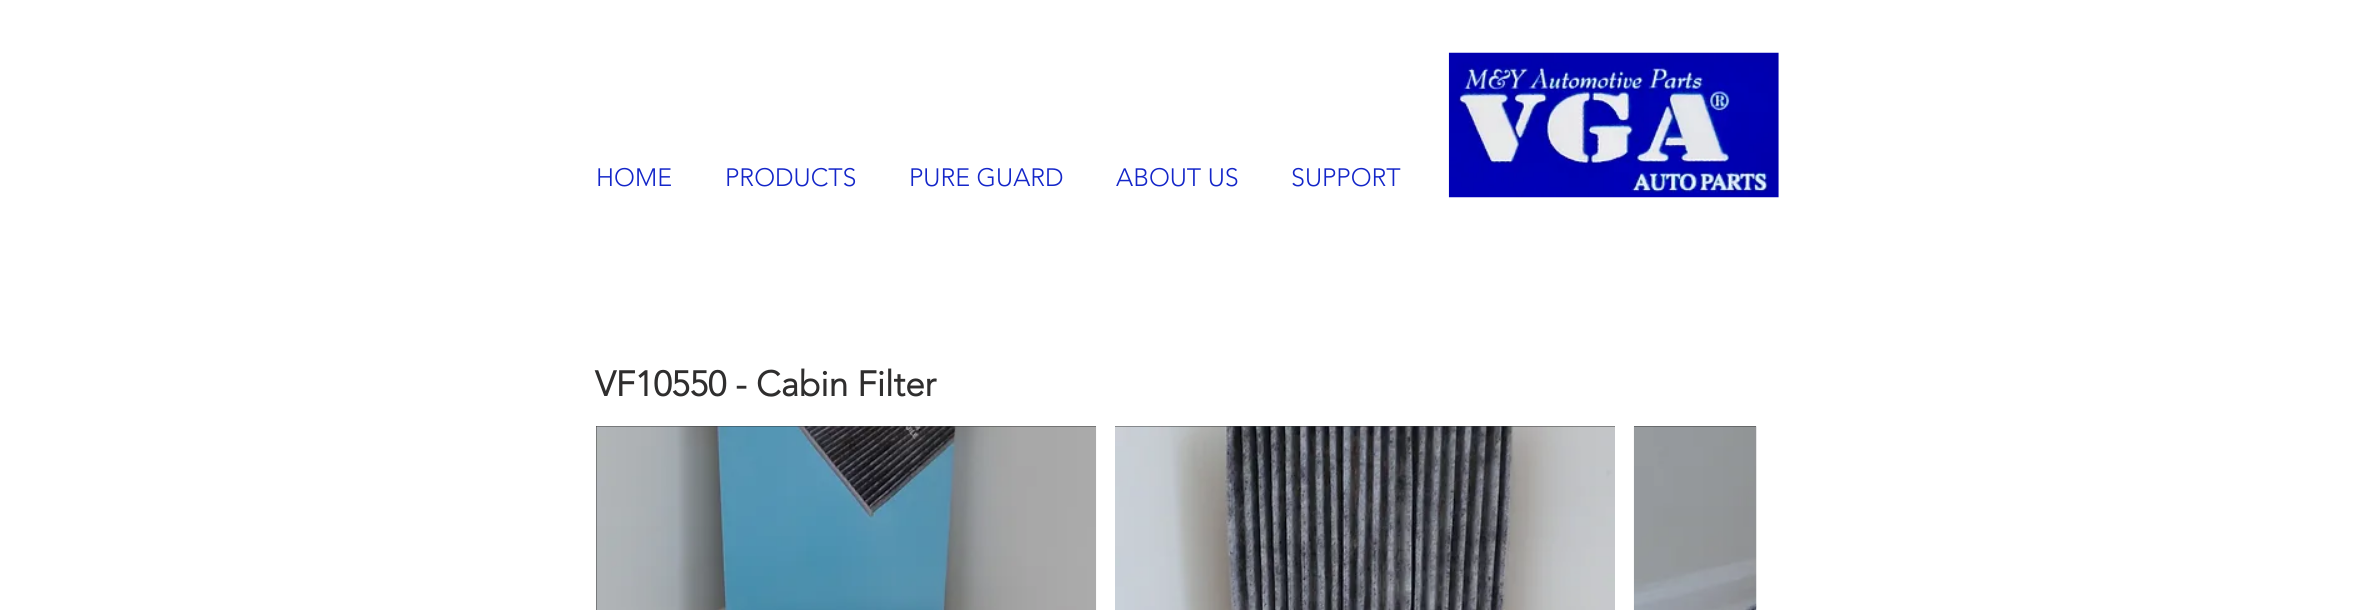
#include <cairo/cairo.h>
#include <math.h>
#include <stddef.h>


static void draw_image(cairo_t *cr, const char *path, double x, double y, double w, double h) {
  cairo_surface_t *image = cairo_image_surface_create_from_png(path);
  cairo_save(cr);
  cairo_set_source_surface(cr, image, x, y);
  cairo_rectangle(cr, x, y, w, h);
  cairo_fill(cr);
  cairo_restore(cr);
  cairo_surface_destroy(image);
}

static void draw(cairo_t *cr) {
  cairo_set_source_rgb(cr, 1, 1, 1);
  cairo_paint(cr);
  draw_image(cr, "images/1.png", 1448, 52, 331, 146);
  cairo_set_source_rgb(cr, 47 / 255.0, 46 / 255.0, 46 / 255.0);
  cairo_rectangle(cr, 596, 426, 500, 184);
  cairo_fill(cr);
  draw_image(cr, "images/2.png", 596, 426, 501, 184);
  cairo_rectangle(cr, 1115, 426, 500, 1);
  cairo_fill(cr);
  draw_image(cr, "images/3.png", 1115, 426, 500, 184);
  cairo_rectangle(cr, 1634, 426, 122, 1);
  cairo_fill(cr);
  draw_image(cr, "images/4.png", 1633, 426, 124, 184);
  cairo_select_font_face(cr, "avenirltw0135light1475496 Light", CAIRO_FONT_SLANT_NORMAL, CAIRO_FONT_WEIGHT_NORMAL);
  cairo_set_font_size(cr, 25);
  cairo_set_source_rgb(cr, 20 / 255.0, 38 / 255.0, 201 / 255.0);
  cairo_move_to(cr, 596, 186);
  cairo_show_text(cr, "HOME");
  cairo_move_to(cr, 725, 186);
  cairo_show_text(cr, "PRODUCTS");
  cairo_move_to(cr, 909, 186);
  cairo_show_text(cr, "PURE GUARD");
  cairo_move_to(cr, 1116, 186);
  cairo_show_text(cr, "ABOUT US");
  cairo_move_to(cr, 1291, 186);
  cairo_show_text(cr, "SUPPORT");
  cairo_select_font_face(cr, "avenirltw0135light1475496", CAIRO_FONT_SLANT_NORMAL, CAIRO_FONT_WEIGHT_BOLD);
  cairo_set_font_size(cr, 35);
  cairo_set_source_rgb(cr, 47 / 255.0, 46 / 255.0, 46 / 255.0);
  cairo_move_to(cr, 595, 396);
  cairo_show_text(cr, "VF10550 - Cabin Filter");
}

int main(void) {
  cairo_surface_t *surface = cairo_image_surface_create(CAIRO_FORMAT_RGB24, 2365, 610);
  cairo_t *cr = cairo_create(surface);
  cairo_font_options_t *options = cairo_font_options_create();
  cairo_font_options_set_hint_metrics(options, CAIRO_HINT_METRICS_OFF);
  cairo_font_options_set_hint_style(options, CAIRO_HINT_STYLE_NONE);
  cairo_set_font_options(cr, options);
  cairo_set_miter_limit(cr, 4);
  draw(cr);
  cairo_surface_write_to_png(surface, "out.png");
  cairo_font_options_destroy(options);
  cairo_destroy(cr);
  cairo_surface_destroy(surface);
  return 0;
}
